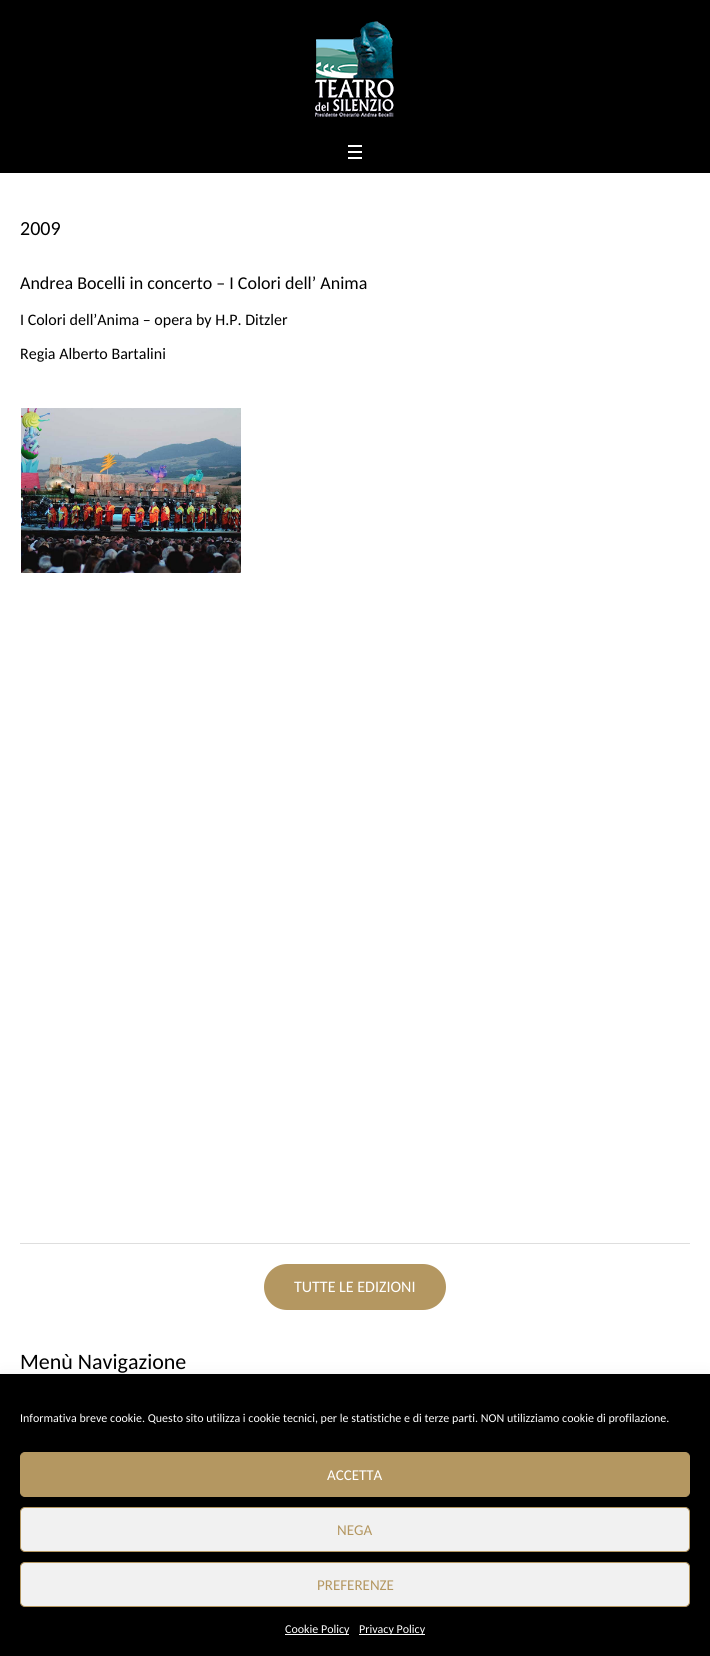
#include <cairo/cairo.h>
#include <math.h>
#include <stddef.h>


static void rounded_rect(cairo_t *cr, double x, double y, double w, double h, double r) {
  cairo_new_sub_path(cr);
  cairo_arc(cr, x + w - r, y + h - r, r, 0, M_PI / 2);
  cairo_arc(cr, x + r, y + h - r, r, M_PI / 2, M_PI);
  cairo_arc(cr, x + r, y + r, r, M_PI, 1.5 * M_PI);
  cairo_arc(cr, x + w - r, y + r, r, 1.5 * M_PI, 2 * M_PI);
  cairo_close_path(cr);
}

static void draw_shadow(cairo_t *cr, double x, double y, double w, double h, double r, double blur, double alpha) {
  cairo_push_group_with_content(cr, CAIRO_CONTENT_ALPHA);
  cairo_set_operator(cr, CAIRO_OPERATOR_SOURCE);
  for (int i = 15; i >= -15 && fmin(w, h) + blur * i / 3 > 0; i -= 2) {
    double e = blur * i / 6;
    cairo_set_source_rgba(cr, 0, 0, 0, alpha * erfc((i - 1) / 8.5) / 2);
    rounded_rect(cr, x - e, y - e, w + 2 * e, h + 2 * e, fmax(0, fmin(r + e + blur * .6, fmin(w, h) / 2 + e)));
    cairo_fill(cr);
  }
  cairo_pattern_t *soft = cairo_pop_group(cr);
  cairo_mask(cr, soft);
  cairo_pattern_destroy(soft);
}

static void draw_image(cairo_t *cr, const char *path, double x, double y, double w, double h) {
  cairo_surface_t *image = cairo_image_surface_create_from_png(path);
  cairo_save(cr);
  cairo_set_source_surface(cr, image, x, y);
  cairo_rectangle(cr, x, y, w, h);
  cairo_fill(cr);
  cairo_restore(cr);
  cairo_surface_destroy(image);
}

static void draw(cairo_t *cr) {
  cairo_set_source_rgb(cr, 1, 1, 1);
  cairo_paint(cr);
  cairo_set_source_rgb(cr, 0, 0, 0);
  cairo_rectangle(cr, 0, 0, 710, 173);
  cairo_fill(cr);
  draw_image(cr, "images/1.png", 315, 21, 79, 96);
  cairo_set_source_rgb(cr, 1, 1, 1);
  cairo_rectangle(cr, 348, 145, 14, 2);
  cairo_fill(cr);
  cairo_rectangle(cr, 348, 151, 14, 2);
  cairo_fill(cr);
  cairo_rectangle(cr, 348, 157, 14, 2);
  cairo_fill(cr);
  draw_image(cr, "images/2.png", 21, 408, 220, 165);
  cairo_set_source_rgb(cr, 222 / 255.0, 222 / 255.0, 222 / 255.0);
  cairo_rectangle(cr, 20, 1243, 670, 1);
  cairo_fill(cr);
  cairo_set_source_rgb(cr, 180 / 255.0, 151 / 255.0, 97 / 255.0);
  rounded_rect(cr, 264, 1264, 182, 46, 23);
  cairo_fill(cr);
  cairo_set_source_rgb(cr, 0, 0, 0);
  draw_shadow(cr, 0, 1384, 710, 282, 0, 10, 0.19);
  cairo_set_source_rgb(cr, 0, 0, 0);
  cairo_rectangle(cr, 0, 1374, 710, 282);
  cairo_fill(cr);
  cairo_set_source_rgb(cr, 180 / 255.0, 151 / 255.0, 97 / 255.0);
  rounded_rect(cr, 20.5, 1452.5, 669, 44, 4.5);
  cairo_fill_preserve(cr);
  cairo_set_line_width(cr, 1);
  cairo_stroke(cr);
  cairo_set_source_rgb(cr, 241 / 255.0, 241 / 255.0, 241 / 255.0);
  rounded_rect(cr, 20.5, 1507.5, 669, 44, 4.5);
  cairo_fill_preserve(cr);
  cairo_set_source_rgb(cr, 180 / 255.0, 151 / 255.0, 97 / 255.0);
  cairo_stroke(cr);
  cairo_set_source_rgb(cr, 241 / 255.0, 241 / 255.0, 241 / 255.0);
  rounded_rect(cr, 20.5, 1562.5, 669, 44, 4.5);
  cairo_fill_preserve(cr);
  cairo_set_source_rgb(cr, 180 / 255.0, 151 / 255.0, 97 / 255.0);
  cairo_stroke(cr);
  cairo_set_source_rgb(cr, 1, 1, 1);
  cairo_rectangle(cr, 285, 1634, 64, 1);
  cairo_fill(cr);
  cairo_rectangle(cr, 359, 1634, 66, 1);
  cairo_fill(cr);
  cairo_select_font_face(cr, "Carlito", CAIRO_FONT_SLANT_NORMAL, CAIRO_FONT_WEIGHT_NORMAL);
  cairo_set_font_size(cr, 20);
  cairo_set_source_rgb(cr, 0, 0, 0);
  cairo_move_to(cr, 20, 235);
  cairo_show_text(cr, "2009");
  cairo_set_font_size(cr, 18);
  cairo_move_to(cr, 20, 289);
  cairo_show_text(cr, "Andrea Bocelli in concerto – I Colori dell’ Anima");
  cairo_set_font_size(cr, 16);
  cairo_move_to(cr, 20, 325);
  cairo_show_text(cr, "I Colori dell’Anima – opera by H.P. Ditzler");
  cairo_move_to(cr, 20, 359);
  cairo_show_text(cr, "Regia Alberto Bartalini");
  cairo_set_source_rgb(cr, 1, 1, 1);
  cairo_move_to(cr, 294, 1292);
  cairo_show_text(cr, "TUTTE LE EDIZIONI");
  cairo_set_font_size(cr, 22);
  cairo_set_source_rgb(cr, 0, 0, 0);
  cairo_move_to(cr, 20, 1369);
  cairo_show_text(cr, "Menù Navigazione");
  cairo_set_font_size(cr, 12);
  cairo_set_source_rgb(cr, 1, 1, 1);
  cairo_move_to(cr, 20, 1422);
  cairo_show_text(cr, "Informativa breve cookie. Questo sito utilizza i cookie tecnici, per le statistiche e di terze parti. NON utilizziamo cookie di profilazione.");
  cairo_set_font_size(cr, 15);
  cairo_move_to(cr, 327, 1480);
  cairo_show_text(cr, "ACCETTA");
  cairo_set_source_rgb(cr, 180 / 255.0, 151 / 255.0, 97 / 255.0);
  cairo_move_to(cr, 337, 1535);
  cairo_show_text(cr, "NEGA");
  cairo_move_to(cr, 317, 1590);
  cairo_show_text(cr, "PREFERENZE");
  cairo_set_font_size(cr, 12);
  cairo_set_source_rgb(cr, 1, 1, 1);
  cairo_move_to(cr, 285, 1633);
  cairo_show_text(cr, "Cookie Policy");
  cairo_move_to(cr, 359, 1633);
  cairo_show_text(cr, "Privacy Policy");
}

int main(void) {
  cairo_surface_t *surface = cairo_image_surface_create(CAIRO_FORMAT_RGB24, 710, 1656);
  cairo_t *cr = cairo_create(surface);
  cairo_font_options_t *options = cairo_font_options_create();
  cairo_font_options_set_hint_metrics(options, CAIRO_HINT_METRICS_OFF);
  cairo_font_options_set_hint_style(options, CAIRO_HINT_STYLE_NONE);
  cairo_set_font_options(cr, options);
  cairo_set_miter_limit(cr, 4);
  draw(cr);
  cairo_surface_write_to_png(surface, "out.png");
  cairo_font_options_destroy(options);
  cairo_destroy(cr);
  cairo_surface_destroy(surface);
  return 0;
}
